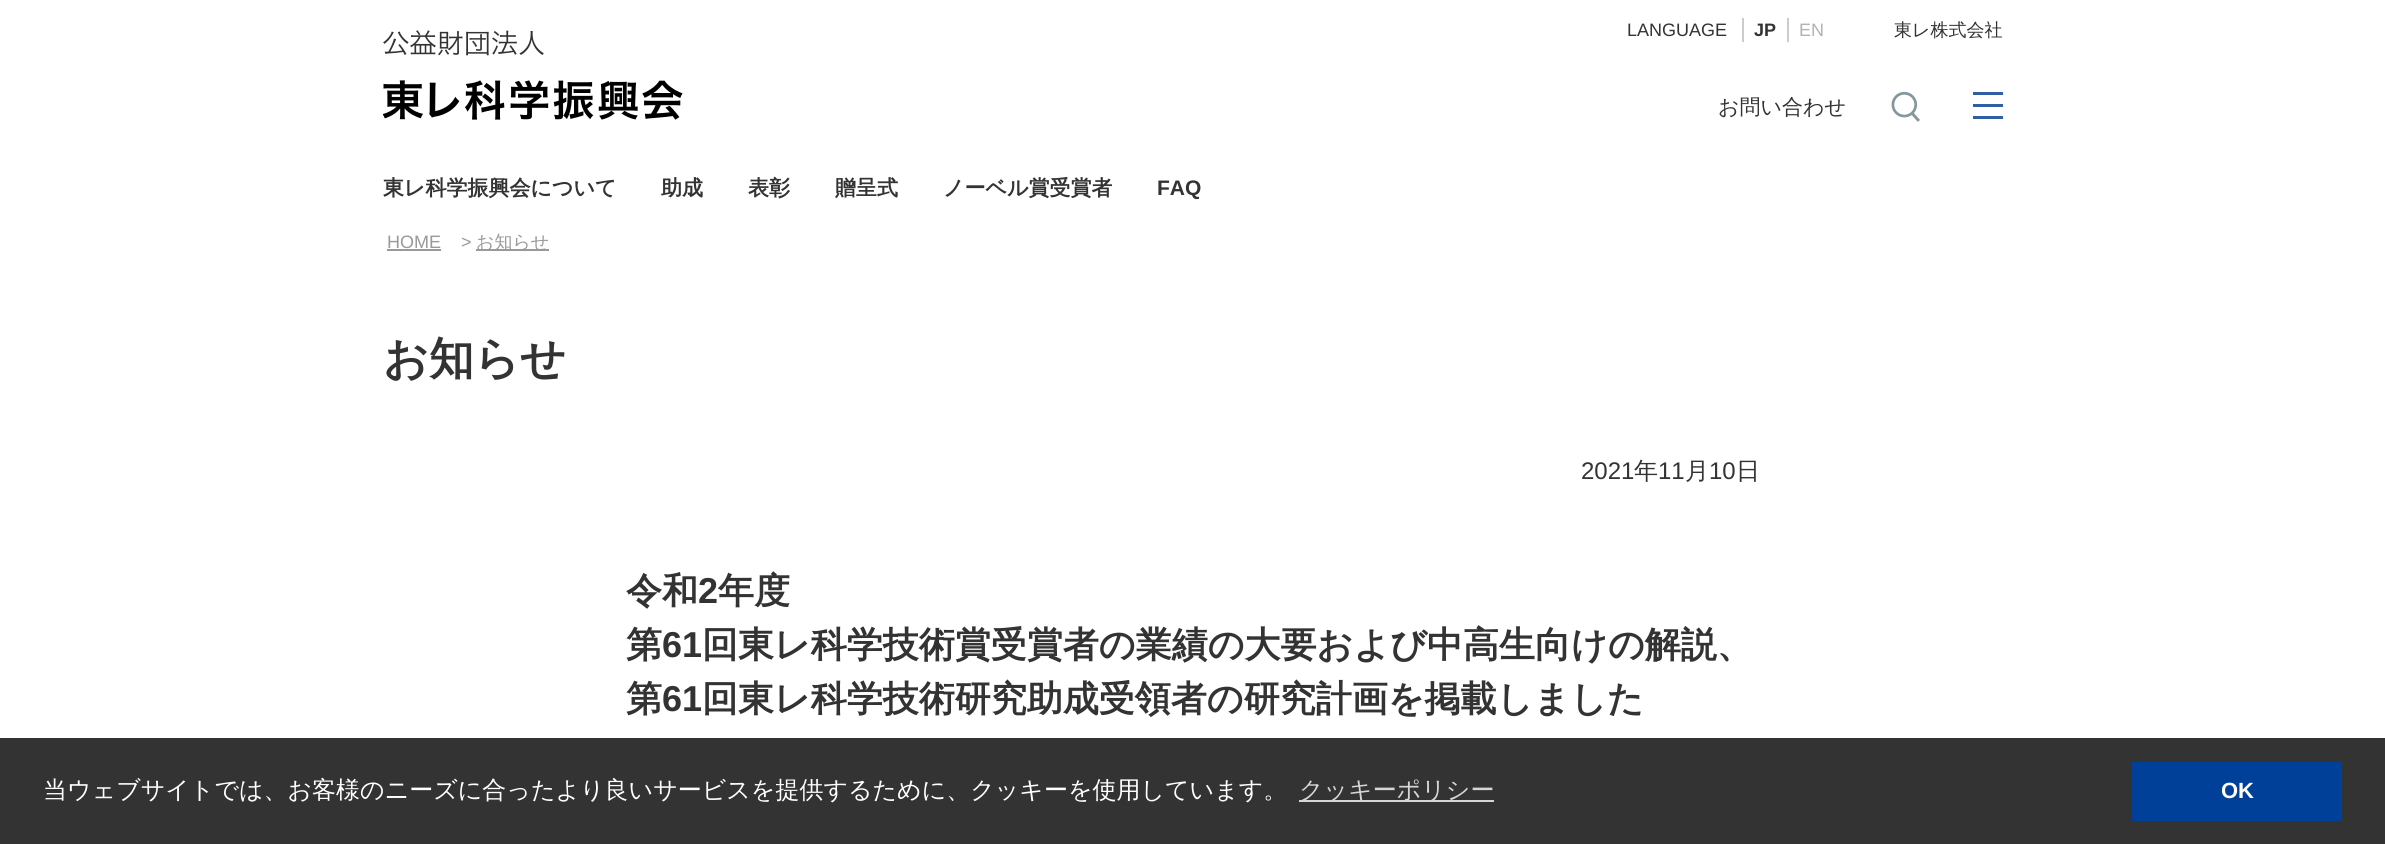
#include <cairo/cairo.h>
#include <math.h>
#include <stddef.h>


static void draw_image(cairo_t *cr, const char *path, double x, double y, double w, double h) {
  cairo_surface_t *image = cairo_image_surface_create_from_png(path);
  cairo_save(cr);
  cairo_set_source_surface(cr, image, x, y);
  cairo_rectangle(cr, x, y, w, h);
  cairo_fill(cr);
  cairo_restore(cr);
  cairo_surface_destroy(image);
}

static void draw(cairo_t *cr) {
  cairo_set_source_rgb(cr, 1, 1, 1);
  cairo_paint(cr);
  draw_image(cr, "images/1.png", 383, 30, 300, 90);
  cairo_set_source_rgb(cr, 204 / 255.0, 204 / 255.0, 204 / 255.0);
  cairo_rectangle(cr, 1742, 18, 2, 24);
  cairo_fill(cr);
  cairo_rectangle(cr, 1787, 18, 2, 24);
  cairo_fill(cr);
  draw_image(cr, "images/2.png", 1891, 91, 29, 31);
  cairo_set_source_rgb(cr, 47 / 255.0, 93 / 255.0, 166 / 255.0);
  cairo_rectangle(cr, 1973, 92, 30, 3);
  cairo_fill(cr);
  cairo_rectangle(cr, 1973, 104, 30, 3);
  cairo_fill(cr);
  cairo_rectangle(cr, 1973, 116, 30, 3);
  cairo_fill(cr);
  cairo_set_source_rgb(cr, 153 / 255.0, 153 / 255.0, 153 / 255.0);
  cairo_rectangle(cr, 387, 249, 54, 2);
  cairo_fill(cr);
  cairo_rectangle(cr, 476, 249, 73, 2);
  cairo_fill(cr);
  cairo_set_source_rgb(cr, 51 / 255.0, 51 / 255.0, 51 / 255.0);
  cairo_rectangle(cr, 0, 738, 2385, 106);
  cairo_fill(cr);
  cairo_set_source_rgb(cr, 214 / 255.0, 214 / 255.0, 214 / 255.0);
  cairo_rectangle(cr, 1299, 800, 195, 2);
  cairo_fill(cr);
  cairo_set_source_rgb(cr, 1 / 255.0, 64 / 255.0, 153 / 255.0);
  cairo_rectangle(cr, 2132, 762, 210, 59);
  cairo_fill(cr);
  cairo_select_font_face(cr, "Liberation Sans", CAIRO_FONT_SLANT_NORMAL, CAIRO_FONT_WEIGHT_NORMAL);
  cairo_set_font_size(cr, 18);
  cairo_set_source_rgb(cr, 51 / 255.0, 51 / 255.0, 51 / 255.0);
  cairo_move_to(cr, 1627, 36);
  cairo_show_text(cr, "LANGUAGE");
  cairo_select_font_face(cr, "Liberation Sans", CAIRO_FONT_SLANT_NORMAL, CAIRO_FONT_WEIGHT_BOLD);
  cairo_move_to(cr, 1754, 36);
  cairo_show_text(cr, "JP");
  cairo_select_font_face(cr, "Liberation Sans", CAIRO_FONT_SLANT_NORMAL, CAIRO_FONT_WEIGHT_NORMAL);
  cairo_set_source_rgb(cr, 178 / 255.0, 178 / 255.0, 178 / 255.0);
  cairo_move_to(cr, 1799, 36);
  cairo_show_text(cr, "EN");
  cairo_select_font_face(cr, "WenQuanYi Zen Hei Medium", CAIRO_FONT_SLANT_NORMAL, CAIRO_FONT_WEIGHT_NORMAL);
  cairo_set_source_rgb(cr, 51 / 255.0, 51 / 255.0, 51 / 255.0);
  cairo_move_to(cr, 1894, 36);
  cairo_show_text(cr, "東レ株式会社");
  cairo_set_font_size(cr, 21);
  cairo_move_to(cr, 1718, 114);
  cairo_show_text(cr, "お問い合わせ");
  cairo_select_font_face(cr, "WenQuanYi Zen Hei", CAIRO_FONT_SLANT_NORMAL, CAIRO_FONT_WEIGHT_BOLD);
  cairo_move_to(cr, 383, 195);
  cairo_show_text(cr, "東レ科学振興会について");
  cairo_move_to(cr, 661, 195);
  cairo_show_text(cr, "助成");
  cairo_move_to(cr, 748, 195);
  cairo_show_text(cr, "表彰");
  cairo_move_to(cr, 835, 195);
  cairo_show_text(cr, "贈呈式");
  cairo_move_to(cr, 943, 195);
  cairo_show_text(cr, "ノーベル賞受賞者");
  cairo_select_font_face(cr, "Liberation Sans", CAIRO_FONT_SLANT_NORMAL, CAIRO_FONT_WEIGHT_BOLD);
  cairo_move_to(cr, 1157, 195);
  cairo_show_text(cr, "FAQ");
  cairo_select_font_face(cr, "Liberation Sans", CAIRO_FONT_SLANT_NORMAL, CAIRO_FONT_WEIGHT_NORMAL);
  cairo_set_font_size(cr, 18);
  cairo_set_source_rgb(cr, 153 / 255.0, 153 / 255.0, 153 / 255.0);
  cairo_move_to(cr, 387, 248);
  cairo_show_text(cr, "HOME");
  cairo_move_to(cr, 461, 248);
  cairo_show_text(cr, ">");
  cairo_select_font_face(cr, "WenQuanYi Zen Hei Medium", CAIRO_FONT_SLANT_NORMAL, CAIRO_FONT_WEIGHT_NORMAL);
  cairo_move_to(cr, 476, 248);
  cairo_show_text(cr, "お知らせ");
  cairo_select_font_face(cr, "WenQuanYi Zen Hei", CAIRO_FONT_SLANT_NORMAL, CAIRO_FONT_WEIGHT_BOLD);
  cairo_set_font_size(cr, 45);
  cairo_set_source_rgb(cr, 51 / 255.0, 51 / 255.0, 51 / 255.0);
  cairo_move_to(cr, 383, 374);
  cairo_show_text(cr, "お知らせ");
  cairo_select_font_face(cr, "Liberation Sans", CAIRO_FONT_SLANT_NORMAL, CAIRO_FONT_WEIGHT_NORMAL);
  cairo_set_font_size(cr, 24);
  cairo_move_to(cr, 1581, 479);
  cairo_show_text(cr, "2021");
  cairo_select_font_face(cr, "WenQuanYi Zen Hei Medium", CAIRO_FONT_SLANT_NORMAL, CAIRO_FONT_WEIGHT_NORMAL);
  cairo_move_to(cr, 1634, 479);
  cairo_show_text(cr, "年");
  cairo_select_font_face(cr, "Liberation Sans", CAIRO_FONT_SLANT_NORMAL, CAIRO_FONT_WEIGHT_NORMAL);
  cairo_move_to(cr, 1658, 479);
  cairo_show_text(cr, "11");
  cairo_select_font_face(cr, "WenQuanYi Zen Hei Medium", CAIRO_FONT_SLANT_NORMAL, CAIRO_FONT_WEIGHT_NORMAL);
  cairo_move_to(cr, 1685, 479);
  cairo_show_text(cr, "月");
  cairo_select_font_face(cr, "Liberation Sans", CAIRO_FONT_SLANT_NORMAL, CAIRO_FONT_WEIGHT_NORMAL);
  cairo_move_to(cr, 1709, 479);
  cairo_show_text(cr, "10");
  cairo_select_font_face(cr, "WenQuanYi Zen Hei Medium", CAIRO_FONT_SLANT_NORMAL, CAIRO_FONT_WEIGHT_NORMAL);
  cairo_move_to(cr, 1736, 479);
  cairo_show_text(cr, "日");
  cairo_select_font_face(cr, "WenQuanYi Zen Hei", CAIRO_FONT_SLANT_NORMAL, CAIRO_FONT_WEIGHT_BOLD);
  cairo_set_font_size(cr, 36);
  cairo_move_to(cr, 626, 603);
  cairo_show_text(cr, "令和");
  cairo_select_font_face(cr, "Liberation Sans", CAIRO_FONT_SLANT_NORMAL, CAIRO_FONT_WEIGHT_BOLD);
  cairo_move_to(cr, 698, 603);
  cairo_show_text(cr, "2");
  cairo_select_font_face(cr, "WenQuanYi Zen Hei", CAIRO_FONT_SLANT_NORMAL, CAIRO_FONT_WEIGHT_BOLD);
  cairo_move_to(cr, 718, 603);
  cairo_show_text(cr, "年度");
  cairo_move_to(cr, 626, 657);
  cairo_show_text(cr, "第");
  cairo_select_font_face(cr, "Liberation Sans", CAIRO_FONT_SLANT_NORMAL, CAIRO_FONT_WEIGHT_BOLD);
  cairo_move_to(cr, 662, 657);
  cairo_show_text(cr, "61");
  cairo_select_font_face(cr, "WenQuanYi Zen Hei", CAIRO_FONT_SLANT_NORMAL, CAIRO_FONT_WEIGHT_BOLD);
  cairo_move_to(cr, 702, 657);
  cairo_show_text(cr, "回東レ科学技術賞受賞者の業績の大要および中高生向けの解説、");
  cairo_move_to(cr, 626, 711);
  cairo_show_text(cr, "第");
  cairo_select_font_face(cr, "Liberation Sans", CAIRO_FONT_SLANT_NORMAL, CAIRO_FONT_WEIGHT_BOLD);
  cairo_move_to(cr, 662, 711);
  cairo_show_text(cr, "61");
  cairo_select_font_face(cr, "WenQuanYi Zen Hei", CAIRO_FONT_SLANT_NORMAL, CAIRO_FONT_WEIGHT_BOLD);
  cairo_move_to(cr, 702, 711);
  cairo_show_text(cr, "回東レ科学技術研究助成受領者の研究計画を掲載しました");
  cairo_select_font_face(cr, "WenQuanYi Zen Hei Medium", CAIRO_FONT_SLANT_NORMAL, CAIRO_FONT_WEIGHT_NORMAL);
  cairo_set_font_size(cr, 24);
  cairo_set_source_rgb(cr, 1, 1, 1);
  cairo_move_to(cr, 43, 798);
  cairo_show_text(cr, "当ウェブサイトでは、お客様のニーズに合ったより良いサービスを提供するために、クッキーを使用しています。");
  cairo_set_source_rgb(cr, 214 / 255.0, 214 / 255.0, 214 / 255.0);
  cairo_move_to(cr, 1299, 798);
  cairo_show_text(cr, "クッキーポリシー");
  cairo_select_font_face(cr, "Liberation Sans", CAIRO_FONT_SLANT_NORMAL, CAIRO_FONT_WEIGHT_BOLD);
  cairo_set_font_size(cr, 22);
  cairo_set_source_rgb(cr, 1, 1, 1);
  cairo_move_to(cr, 2221, 798);
  cairo_show_text(cr, "OK");
}

int main(void) {
  cairo_surface_t *surface = cairo_image_surface_create(CAIRO_FORMAT_RGB24, 2385, 844);
  cairo_t *cr = cairo_create(surface);
  cairo_font_options_t *options = cairo_font_options_create();
  cairo_font_options_set_hint_metrics(options, CAIRO_HINT_METRICS_OFF);
  cairo_font_options_set_hint_style(options, CAIRO_HINT_STYLE_NONE);
  cairo_set_font_options(cr, options);
  cairo_set_miter_limit(cr, 4);
  draw(cr);
  cairo_surface_write_to_png(surface, "out.png");
  cairo_font_options_destroy(options);
  cairo_destroy(cr);
  cairo_surface_destroy(surface);
  return 0;
}
